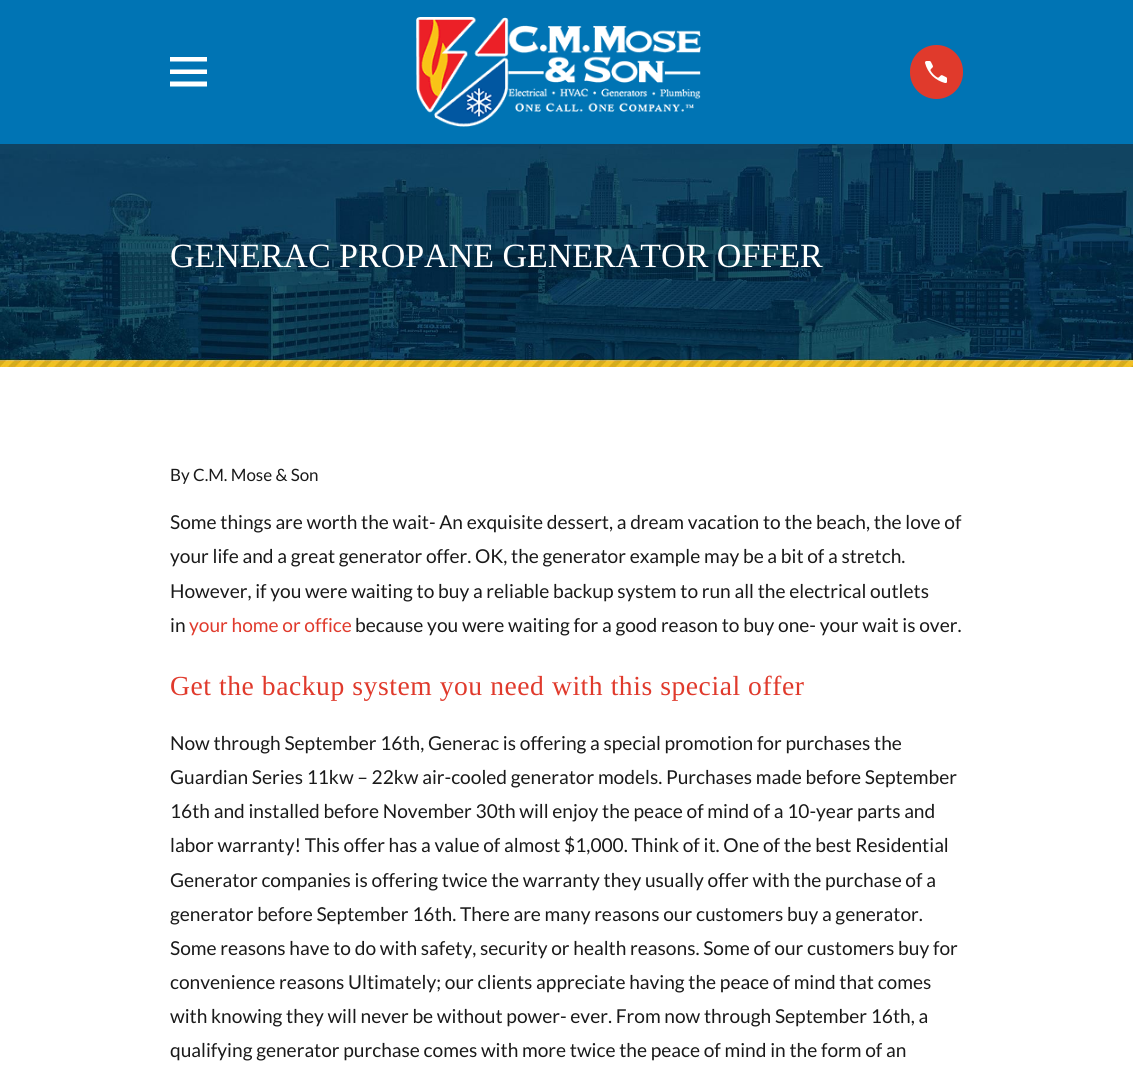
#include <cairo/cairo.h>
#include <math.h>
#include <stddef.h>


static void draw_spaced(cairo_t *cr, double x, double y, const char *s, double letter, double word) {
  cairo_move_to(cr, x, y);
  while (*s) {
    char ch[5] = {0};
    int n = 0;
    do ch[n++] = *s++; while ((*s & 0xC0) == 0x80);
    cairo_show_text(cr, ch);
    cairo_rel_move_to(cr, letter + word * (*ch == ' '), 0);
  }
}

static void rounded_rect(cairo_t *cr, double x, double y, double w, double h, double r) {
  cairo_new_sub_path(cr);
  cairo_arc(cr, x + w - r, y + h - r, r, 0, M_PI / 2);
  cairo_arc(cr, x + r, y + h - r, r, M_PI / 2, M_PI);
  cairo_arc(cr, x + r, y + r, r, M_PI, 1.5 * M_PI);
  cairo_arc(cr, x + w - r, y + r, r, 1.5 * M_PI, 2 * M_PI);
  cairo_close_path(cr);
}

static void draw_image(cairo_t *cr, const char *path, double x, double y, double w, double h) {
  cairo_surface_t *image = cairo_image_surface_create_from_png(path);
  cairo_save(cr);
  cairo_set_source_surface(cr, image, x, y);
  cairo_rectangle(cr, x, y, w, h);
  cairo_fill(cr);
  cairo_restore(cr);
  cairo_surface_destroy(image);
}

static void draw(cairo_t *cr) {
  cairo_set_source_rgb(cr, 1, 1, 1);
  cairo_paint(cr);
  cairo_set_source_rgb(cr, 0, 116 / 255.0, 180 / 255.0);
  cairo_rectangle(cr, 0, 0, 1133, 144);
  cairo_fill(cr);
  cairo_save(cr);
  cairo_rectangle(cr, 170, 53, 37, 38);
  cairo_clip(cr);
  cairo_set_source_rgb(cr, 1, 1, 1);
  cairo_new_path(cr);
  cairo_move_to(cr, 170, 57);
  cairo_line_to(cr, 170, 61.5);
  cairo_line_to(cr, 207.5, 61.5);
  cairo_line_to(cr, 207.5, 57);
  cairo_close_path(cr);
  cairo_move_to(cr, 170, 69.5);
  cairo_line_to(cr, 170, 74);
  cairo_line_to(cr, 207.5, 74);
  cairo_line_to(cr, 207.5, 69.5);
  cairo_close_path(cr);
  cairo_move_to(cr, 170, 81.5);
  cairo_line_to(cr, 170, 86.5);
  cairo_line_to(cr, 207.5, 86.5);
  cairo_line_to(cr, 207.5, 81.5);
  cairo_close_path(cr);
  cairo_fill(cr);
  cairo_restore(cr);
  draw_image(cr, "images/1.png", 416, 17, 285, 110);
  cairo_set_source_rgb(cr, 224 / 255.0, 58 / 255.0, 44 / 255.0);
  rounded_rect(cr, 910, 45, 53, 54, 26.5);
  cairo_fill(cr);
  draw_image(cr, "images/2.png", 925, 61, 22, 22);
  draw_image(cr, "images/3.png", 0, 144, 1133, 223);
  cairo_select_font_face(cr, "Liberation Serif", CAIRO_FONT_SLANT_NORMAL, CAIRO_FONT_WEIGHT_NORMAL);
  cairo_set_font_size(cr, 34);
  cairo_set_source_rgb(cr, 1, 1, 1);
  cairo_move_to(cr, 170, 267);
  cairo_show_text(cr, "GENERAC PROPANE GENERATOR OFFER");
  cairo_select_font_face(cr, "Lato", CAIRO_FONT_SLANT_NORMAL, CAIRO_FONT_WEIGHT_NORMAL);
  cairo_set_font_size(cr, 17);
  cairo_set_source_rgb(cr, 26 / 255.0, 26 / 255.0, 26 / 255.0);
  cairo_move_to(cr, 170, 481);
  cairo_show_text(cr, "By C.M. Mose & Son");
  cairo_set_font_size(cr, 19.15);
  cairo_move_to(cr, 170, 529);
  cairo_show_text(cr, "Some things are worth the wait- An exquisite dessert, a dream vacation to the beach, the love of");
  cairo_move_to(cr, 170, 563);
  cairo_show_text(cr, "your life and a great generator offer. OK, the generator example may be a bit of a stretch.");
  cairo_move_to(cr, 170, 598);
  cairo_show_text(cr, "However, if you were waiting to buy a reliable backup system to run all the electrical outlets");
  cairo_move_to(cr, 170, 632);
  cairo_show_text(cr, "in");
  cairo_set_source_rgb(cr, 224 / 255.0, 58 / 255.0, 44 / 255.0);
  cairo_move_to(cr, 189, 632);
  cairo_show_text(cr, "your home or office");
  cairo_set_source_rgb(cr, 26 / 255.0, 26 / 255.0, 26 / 255.0);
  cairo_move_to(cr, 355, 632);
  cairo_show_text(cr, "because you were waiting for a good reason to buy one- your wait is over.");
  cairo_select_font_face(cr, "Liberation Serif", CAIRO_FONT_SLANT_NORMAL, CAIRO_FONT_WEIGHT_NORMAL);
  cairo_set_font_size(cr, 27.6);
  cairo_set_source_rgb(cr, 224 / 255.0, 58 / 255.0, 44 / 255.0);
  draw_spaced(cr, 170, 695, "Get the backup system you need with this special offer", 0.55, 0);
  cairo_select_font_face(cr, "Lato", CAIRO_FONT_SLANT_NORMAL, CAIRO_FONT_WEIGHT_NORMAL);
  cairo_set_font_size(cr, 19.15);
  cairo_set_source_rgb(cr, 26 / 255.0, 26 / 255.0, 26 / 255.0);
  cairo_move_to(cr, 170, 750);
  cairo_show_text(cr, "Now through September 16th, Generac is offering a special promotion for purchases the");
  cairo_move_to(cr, 170, 784);
  cairo_show_text(cr, "Guardian Series 11kw – 22kw air-cooled generator models. Purchases made before September");
  cairo_move_to(cr, 170, 818);
  cairo_show_text(cr, "16th and installed before November 30th will enjoy the peace of mind of a 10-year parts and");
  cairo_move_to(cr, 170, 852);
  cairo_show_text(cr, "labor warranty! This offer has a value of almost $1,000. Think of it. One of the best Residential");
  cairo_move_to(cr, 170, 887);
  cairo_show_text(cr, "Generator companies is offering twice the warranty they usually offer with the purchase of a");
  cairo_move_to(cr, 170, 921);
  cairo_show_text(cr, "generator before September 16th. There are many reasons our customers buy a generator.");
  cairo_move_to(cr, 170, 955);
  cairo_show_text(cr, "Some reasons have to do with safety, security or health reasons. Some of our customers buy for");
  cairo_move_to(cr, 170, 989);
  cairo_show_text(cr, "convenience reasons Ultimately; our clients appreciate having the peace of mind that comes");
  cairo_move_to(cr, 170, 1023);
  cairo_show_text(cr, "with knowing they will never be without power- ever. From now through September 16th, a");
  cairo_move_to(cr, 170, 1057);
  cairo_show_text(cr, "qualifying generator purchase comes with more twice the peace of mind in the form of an");
}

int main(void) {
  cairo_surface_t *surface = cairo_image_surface_create(CAIRO_FORMAT_RGB24, 1133, 1074);
  cairo_t *cr = cairo_create(surface);
  cairo_font_options_t *options = cairo_font_options_create();
  cairo_font_options_set_hint_metrics(options, CAIRO_HINT_METRICS_OFF);
  cairo_font_options_set_hint_style(options, CAIRO_HINT_STYLE_NONE);
  cairo_set_font_options(cr, options);
  cairo_set_miter_limit(cr, 4);
  draw(cr);
  cairo_surface_write_to_png(surface, "out.png");
  cairo_font_options_destroy(options);
  cairo_destroy(cr);
  cairo_surface_destroy(surface);
  return 0;
}
